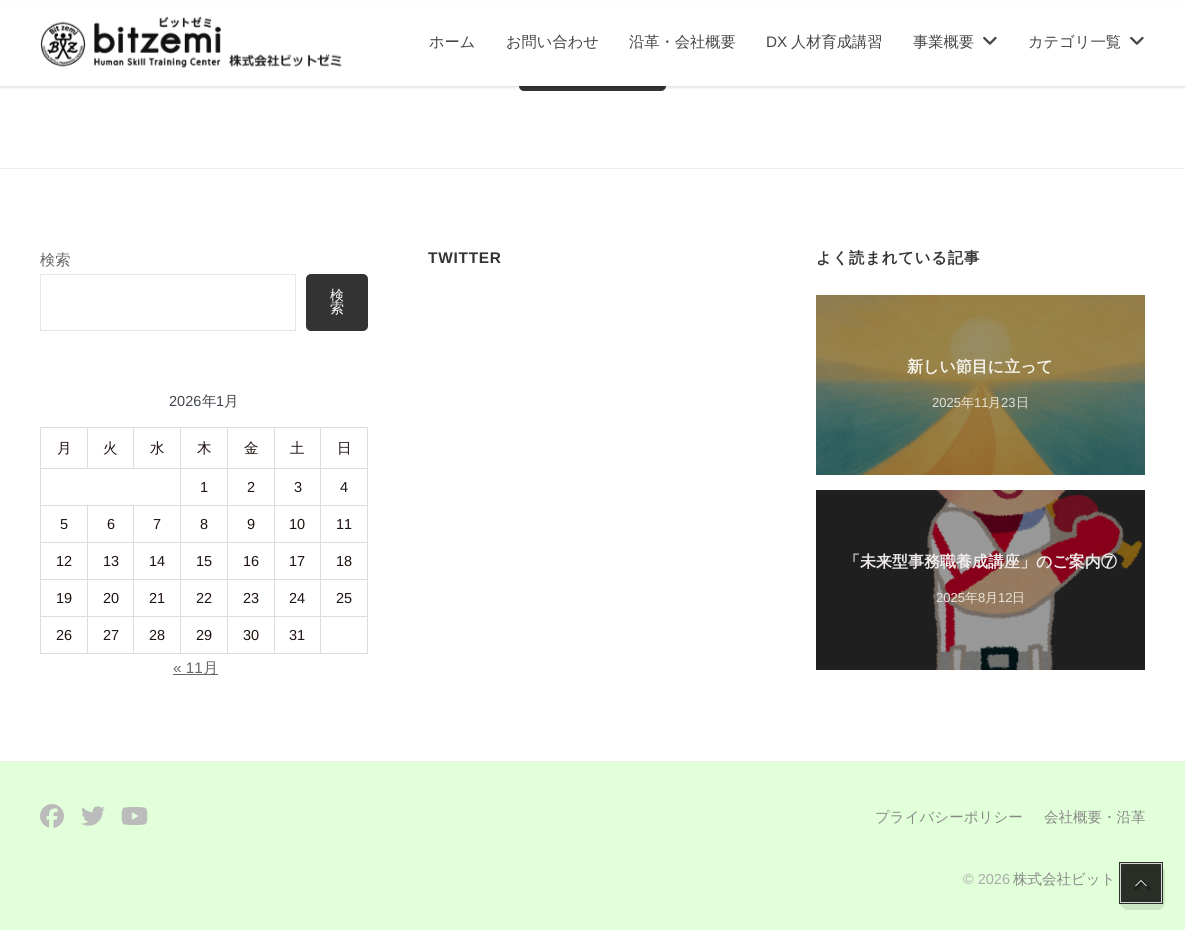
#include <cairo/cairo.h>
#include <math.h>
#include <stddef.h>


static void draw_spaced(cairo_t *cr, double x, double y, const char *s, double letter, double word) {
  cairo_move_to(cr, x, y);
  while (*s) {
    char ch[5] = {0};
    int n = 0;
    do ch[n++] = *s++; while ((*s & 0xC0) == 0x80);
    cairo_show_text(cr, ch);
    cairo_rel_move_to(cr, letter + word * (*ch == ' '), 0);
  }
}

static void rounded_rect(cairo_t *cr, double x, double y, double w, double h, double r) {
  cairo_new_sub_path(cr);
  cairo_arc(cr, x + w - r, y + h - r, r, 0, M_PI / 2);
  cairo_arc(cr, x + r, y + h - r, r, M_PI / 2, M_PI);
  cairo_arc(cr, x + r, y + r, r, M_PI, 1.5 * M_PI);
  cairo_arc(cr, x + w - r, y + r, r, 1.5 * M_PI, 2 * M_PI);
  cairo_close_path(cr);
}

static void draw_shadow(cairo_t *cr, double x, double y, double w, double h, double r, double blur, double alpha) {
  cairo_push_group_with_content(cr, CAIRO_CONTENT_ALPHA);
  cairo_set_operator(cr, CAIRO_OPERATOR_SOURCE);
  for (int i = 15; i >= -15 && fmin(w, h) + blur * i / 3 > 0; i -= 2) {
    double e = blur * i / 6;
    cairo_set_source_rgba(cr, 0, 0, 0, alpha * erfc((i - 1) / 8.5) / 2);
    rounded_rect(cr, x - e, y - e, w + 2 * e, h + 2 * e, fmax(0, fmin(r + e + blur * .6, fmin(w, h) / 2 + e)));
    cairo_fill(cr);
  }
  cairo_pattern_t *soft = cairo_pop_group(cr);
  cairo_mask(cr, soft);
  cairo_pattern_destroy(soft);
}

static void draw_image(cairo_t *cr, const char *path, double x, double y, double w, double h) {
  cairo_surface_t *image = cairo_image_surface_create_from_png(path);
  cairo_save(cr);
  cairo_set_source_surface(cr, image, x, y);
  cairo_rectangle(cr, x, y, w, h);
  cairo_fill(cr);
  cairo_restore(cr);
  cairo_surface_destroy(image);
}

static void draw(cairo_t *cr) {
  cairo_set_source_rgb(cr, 1, 1, 1);
  cairo_paint(cr);
  cairo_set_source_rgb(cr, 51 / 255.0, 51 / 255.0, 51 / 255.0);
  rounded_rect(cr, 519, 45, 147, 46, 5);
  cairo_fill(cr);
  cairo_set_source_rgb(cr, 0, 0, 0);
  draw_shadow(cr, 0, 2, 1185, 86, 0, 1, 0.1);
  cairo_set_source_rgb(cr, 1, 1, 1);
  cairo_rectangle(cr, 0, 1, 1185, 85);
  cairo_fill(cr);
  draw_image(cr, "images/1.png", 40, 16, 302, 52);
  draw_image(cr, "images/2.png", 983, 36, 14, 9);
  draw_image(cr, "images/2.png", 1130, 36, 14, 9);
  cairo_set_source_rgb(cr, 238 / 255.0, 238 / 255.0, 238 / 255.0);
  cairo_rectangle(cr, 0, 168, 1185, 1);
  cairo_fill(cr);
  cairo_rectangle(cr, 40.5, 274.5, 255, 56);
  cairo_set_source_rgb(cr, 230 / 255.0, 230 / 255.0, 230 / 255.0);
  cairo_set_line_width(cr, 1);
  cairo_stroke(cr);
  cairo_set_source_rgb(cr, 51 / 255.0, 51 / 255.0, 51 / 255.0);
  rounded_rect(cr, 306, 274, 62, 57, 5);
  cairo_fill(cr);
  cairo_set_source_rgb(cr, 221 / 255.0, 221 / 255.0, 221 / 255.0);
  cairo_rectangle(cr, 320, 427, 48, 1);
  cairo_fill(cr);
  cairo_rectangle(cr, 320, 468, 48, 1);
  cairo_fill(cr);
  cairo_rectangle(cr, 320, 505, 48, 1);
  cairo_fill(cr);
  cairo_rectangle(cr, 320, 542, 48, 1);
  cairo_fill(cr);
  cairo_rectangle(cr, 320, 579, 48, 1);
  cairo_fill(cr);
  cairo_rectangle(cr, 320, 616, 48, 1);
  cairo_fill(cr);
  cairo_rectangle(cr, 367, 616, 1, 38);
  cairo_fill(cr);
  cairo_rectangle(cr, 320, 653, 48, 1);
  cairo_fill(cr);
  cairo_rectangle(cr, 320, 616, 1, 38);
  cairo_fill(cr);
  cairo_rectangle(cr, 274, 616, 47, 1);
  cairo_fill(cr);
  cairo_rectangle(cr, 320, 579, 1, 38);
  cairo_fill(cr);
  cairo_rectangle(cr, 274, 579, 47, 1);
  cairo_fill(cr);
  cairo_rectangle(cr, 320, 542, 1, 38);
  cairo_fill(cr);
  cairo_rectangle(cr, 274, 542, 47, 1);
  cairo_fill(cr);
  cairo_rectangle(cr, 320, 505, 1, 38);
  cairo_fill(cr);
  cairo_rectangle(cr, 274, 505, 47, 1);
  cairo_fill(cr);
  cairo_rectangle(cr, 320, 468, 1, 38);
  cairo_fill(cr);
  cairo_rectangle(cr, 274, 468, 47, 1);
  cairo_fill(cr);
  cairo_rectangle(cr, 320, 427, 1, 42);
  cairo_fill(cr);
  cairo_rectangle(cr, 274, 427, 47, 1);
  cairo_fill(cr);
  cairo_rectangle(cr, 274, 653, 47, 1);
  cairo_fill(cr);
  cairo_rectangle(cr, 274, 616, 1, 38);
  cairo_fill(cr);
  cairo_rectangle(cr, 227, 616, 48, 1);
  cairo_fill(cr);
  cairo_rectangle(cr, 274, 579, 1, 38);
  cairo_fill(cr);
  cairo_rectangle(cr, 227, 579, 48, 1);
  cairo_fill(cr);
  cairo_rectangle(cr, 274, 542, 1, 38);
  cairo_fill(cr);
  cairo_rectangle(cr, 227, 542, 48, 1);
  cairo_fill(cr);
  cairo_rectangle(cr, 274, 505, 1, 38);
  cairo_fill(cr);
  cairo_rectangle(cr, 227, 505, 48, 1);
  cairo_fill(cr);
  cairo_rectangle(cr, 274, 468, 1, 38);
  cairo_fill(cr);
  cairo_rectangle(cr, 227, 468, 48, 1);
  cairo_fill(cr);
  cairo_rectangle(cr, 274, 427, 1, 42);
  cairo_fill(cr);
  cairo_rectangle(cr, 227, 427, 48, 1);
  cairo_fill(cr);
  cairo_rectangle(cr, 227, 653, 48, 1);
  cairo_fill(cr);
  cairo_rectangle(cr, 227, 616, 1, 38);
  cairo_fill(cr);
  cairo_rectangle(cr, 180, 616, 48, 1);
  cairo_fill(cr);
  cairo_rectangle(cr, 227, 579, 1, 38);
  cairo_fill(cr);
  cairo_rectangle(cr, 180, 579, 48, 1);
  cairo_fill(cr);
  cairo_rectangle(cr, 227, 542, 1, 38);
  cairo_fill(cr);
  cairo_rectangle(cr, 180, 542, 48, 1);
  cairo_fill(cr);
  cairo_rectangle(cr, 227, 505, 1, 38);
  cairo_fill(cr);
  cairo_rectangle(cr, 180, 505, 48, 1);
  cairo_fill(cr);
  cairo_rectangle(cr, 227, 468, 1, 38);
  cairo_fill(cr);
  cairo_rectangle(cr, 180, 468, 48, 1);
  cairo_fill(cr);
  cairo_rectangle(cr, 227, 427, 1, 42);
  cairo_fill(cr);
  cairo_rectangle(cr, 180, 427, 48, 1);
  cairo_fill(cr);
  cairo_rectangle(cr, 180, 653, 48, 1);
  cairo_fill(cr);
  cairo_rectangle(cr, 180, 616, 1, 38);
  cairo_fill(cr);
  cairo_rectangle(cr, 133, 616, 48, 1);
  cairo_fill(cr);
  cairo_rectangle(cr, 180, 579, 1, 38);
  cairo_fill(cr);
  cairo_rectangle(cr, 133, 579, 48, 1);
  cairo_fill(cr);
  cairo_rectangle(cr, 180, 542, 1, 38);
  cairo_fill(cr);
  cairo_rectangle(cr, 133, 542, 48, 1);
  cairo_fill(cr);
  cairo_rectangle(cr, 180, 505, 1, 38);
  cairo_fill(cr);
  cairo_rectangle(cr, 133, 505, 48, 1);
  cairo_fill(cr);
  cairo_rectangle(cr, 180, 468, 1, 38);
  cairo_fill(cr);
  cairo_rectangle(cr, 40, 468, 141, 1);
  cairo_fill(cr);
  cairo_rectangle(cr, 180, 427, 1, 42);
  cairo_fill(cr);
  cairo_rectangle(cr, 133, 427, 48, 1);
  cairo_fill(cr);
  cairo_rectangle(cr, 133, 427, 1, 42);
  cairo_fill(cr);
  cairo_rectangle(cr, 87, 427, 47, 1);
  cairo_fill(cr);
  cairo_rectangle(cr, 87, 427, 1, 42);
  cairo_fill(cr);
  cairo_rectangle(cr, 40, 427, 48, 1);
  cairo_fill(cr);
  cairo_rectangle(cr, 133, 653, 48, 1);
  cairo_fill(cr);
  cairo_rectangle(cr, 133, 616, 1, 38);
  cairo_fill(cr);
  cairo_rectangle(cr, 87, 616, 47, 1);
  cairo_fill(cr);
  cairo_rectangle(cr, 133, 579, 1, 38);
  cairo_fill(cr);
  cairo_rectangle(cr, 87, 579, 47, 1);
  cairo_fill(cr);
  cairo_rectangle(cr, 133, 542, 1, 38);
  cairo_fill(cr);
  cairo_rectangle(cr, 87, 542, 47, 1);
  cairo_fill(cr);
  cairo_rectangle(cr, 133, 505, 1, 38);
  cairo_fill(cr);
  cairo_rectangle(cr, 87, 505, 47, 1);
  cairo_fill(cr);
  cairo_rectangle(cr, 87, 653, 47, 1);
  cairo_fill(cr);
  cairo_rectangle(cr, 87, 616, 1, 38);
  cairo_fill(cr);
  cairo_rectangle(cr, 40, 616, 48, 1);
  cairo_fill(cr);
  cairo_rectangle(cr, 87, 579, 1, 38);
  cairo_fill(cr);
  cairo_rectangle(cr, 40, 579, 48, 1);
  cairo_fill(cr);
  cairo_rectangle(cr, 87, 542, 1, 38);
  cairo_fill(cr);
  cairo_rectangle(cr, 40, 542, 48, 1);
  cairo_fill(cr);
  cairo_rectangle(cr, 87, 505, 1, 38);
  cairo_fill(cr);
  cairo_rectangle(cr, 40, 505, 48, 1);
  cairo_fill(cr);
  cairo_rectangle(cr, 40, 653, 48, 1);
  cairo_fill(cr);
  cairo_rectangle(cr, 40, 616, 1, 38);
  cairo_fill(cr);
  cairo_rectangle(cr, 40, 579, 1, 38);
  cairo_fill(cr);
  cairo_rectangle(cr, 40, 542, 1, 38);
  cairo_fill(cr);
  cairo_rectangle(cr, 40, 505, 1, 38);
  cairo_fill(cr);
  cairo_rectangle(cr, 40, 468, 1, 38);
  cairo_fill(cr);
  cairo_rectangle(cr, 40, 427, 1, 42);
  cairo_fill(cr);
  cairo_rectangle(cr, 367, 579, 1, 38);
  cairo_fill(cr);
  cairo_rectangle(cr, 367, 542, 1, 38);
  cairo_fill(cr);
  cairo_rectangle(cr, 367, 505, 1, 38);
  cairo_fill(cr);
  cairo_rectangle(cr, 367, 468, 1, 38);
  cairo_fill(cr);
  cairo_rectangle(cr, 367, 427, 1, 42);
  cairo_fill(cr);
  cairo_set_source_rgb(cr, 102 / 255.0, 102 / 255.0, 102 / 255.0);
  cairo_rectangle(cr, 173, 674, 45, 1);
  cairo_fill(cr);
  draw_image(cr, "images/3.png", 816, 295, 329, 180);
  cairo_set_source_rgb(cr, 31 / 255.0, 31 / 255.0, 31 / 255.0);
  cairo_rectangle(cr, 816, 490, 329, 180);
  cairo_fill(cr);
  draw_image(cr, "images/4.png", 926, 490, 217, 180);
  cairo_set_source_rgb(cr, 225 / 255.0, 1, 216 / 255.0);
  cairo_rectangle(cr, 0, 762, 1185, 168);
  cairo_fill(cr);
  cairo_set_source_rgb(cr, 238 / 255.0, 238 / 255.0, 238 / 255.0);
  cairo_rectangle(cr, 0, 761, 1185, 1);
  cairo_fill(cr);
  draw_image(cr, "images/5.png", 40, 804, 24, 24);
  draw_image(cr, "images/6.png", 81, 806, 24, 20);
  draw_image(cr, "images/7.png", 121, 807, 27, 18);
  cairo_set_source_rgba(cr, 0, 0, 0, 0.1);
  rounded_rect(cr, 1120, 865, 45, 45, 8);
  cairo_fill(cr);
  draw_image(cr, "images/9.png", 1134, 880, 17, 10);
  cairo_rectangle(cr, 1120, 863, 42, 40);
  cairo_set_source_rgba(cr, 0, 0, 0, 0.8);
  cairo_set_line_width(cr, 2);
  cairo_stroke(cr);
  cairo_rectangle(cr, 1120.5, 863.5, 41, 39);
  cairo_set_source_rgba(cr, 1, 1, 1, 0.8);
  cairo_set_line_width(cr, 1);
  cairo_stroke(cr);
  cairo_set_source_rgba(cr, 0, 0, 0, 0.8);
  cairo_rectangle(cr, 1121, 864, 40, 38);
  cairo_fill(cr);
  draw_image(cr, "images/8.png", 1135, 880, 12, 7);
  cairo_select_font_face(cr, "WenQuanYi Zen Hei Medium", CAIRO_FONT_SLANT_NORMAL, CAIRO_FONT_WEIGHT_NORMAL);
  cairo_set_font_size(cr, 15.25);
  cairo_set_source_rgb(cr, 68 / 255.0, 68 / 255.0, 68 / 255.0);
  cairo_move_to(cr, 429, 47);
  cairo_show_text(cr, "ホーム");
  cairo_move_to(cr, 506, 47);
  cairo_show_text(cr, "お問い合わせ");
  cairo_move_to(cr, 629, 47);
  cairo_show_text(cr, "沿革・会社概要");
  cairo_select_font_face(cr, "Liberation Sans", CAIRO_FONT_SLANT_NORMAL, CAIRO_FONT_WEIGHT_NORMAL);
  cairo_move_to(cr, 766, 47);
  cairo_show_text(cr, "DX");
  cairo_select_font_face(cr, "WenQuanYi Zen Hei Medium", CAIRO_FONT_SLANT_NORMAL, CAIRO_FONT_WEIGHT_NORMAL);
  cairo_move_to(cr, 791, 47);
  cairo_show_text(cr, "人材育成講習");
  cairo_move_to(cr, 913, 47);
  cairo_show_text(cr, "事業概要");
  cairo_move_to(cr, 1028, 47);
  cairo_show_text(cr, "カテゴリ一覧");
  cairo_set_source_rgb(cr, 102 / 255.0, 102 / 255.0, 102 / 255.0);
  cairo_move_to(cr, 40, 265);
  cairo_show_text(cr, "検索");
  cairo_set_font_size(cr, 14);
  cairo_set_source_rgb(cr, 1, 1, 1);
  cairo_move_to(cr, 330, 300);
  cairo_show_text(cr, "検");
  cairo_move_to(cr, 330, 313);
  cairo_show_text(cr, "索");
  cairo_select_font_face(cr, "Liberation Sans", CAIRO_FONT_SLANT_NORMAL, CAIRO_FONT_WEIGHT_NORMAL);
  cairo_set_font_size(cr, 14.5);
  cairo_set_source_rgb(cr, 64 / 255.0, 70 / 255.0, 77 / 255.0);
  cairo_move_to(cr, 169, 406);
  cairo_show_text(cr, "2026");
  cairo_select_font_face(cr, "WenQuanYi Zen Hei Medium", CAIRO_FONT_SLANT_NORMAL, CAIRO_FONT_WEIGHT_NORMAL);
  cairo_move_to(cr, 202, 406);
  cairo_show_text(cr, "年");
  cairo_select_font_face(cr, "Liberation Sans", CAIRO_FONT_SLANT_NORMAL, CAIRO_FONT_WEIGHT_NORMAL);
  cairo_move_to(cr, 216, 406);
  cairo_show_text(cr, "1");
  cairo_select_font_face(cr, "WenQuanYi Zen Hei Medium", CAIRO_FONT_SLANT_NORMAL, CAIRO_FONT_WEIGHT_NORMAL);
  cairo_move_to(cr, 224, 406);
  cairo_show_text(cr, "月");
  cairo_set_source_rgb(cr, 30 / 255.0, 18 / 255.0, 16 / 255.0);
  cairo_move_to(cr, 57, 453);
  cairo_show_text(cr, "月");
  cairo_move_to(cr, 103, 453);
  cairo_show_text(cr, "火");
  cairo_move_to(cr, 150, 453);
  cairo_show_text(cr, "水");
  cairo_move_to(cr, 197, 453);
  cairo_show_text(cr, "木");
  cairo_move_to(cr, 244, 453);
  cairo_show_text(cr, "金");
  cairo_move_to(cr, 290, 453);
  cairo_show_text(cr, "土");
  cairo_move_to(cr, 337, 453);
  cairo_show_text(cr, "日");
  cairo_select_font_face(cr, "Liberation Sans", CAIRO_FONT_SLANT_NORMAL, CAIRO_FONT_WEIGHT_NORMAL);
  cairo_move_to(cr, 200, 492);
  cairo_show_text(cr, "1");
  cairo_move_to(cr, 247, 492);
  cairo_show_text(cr, "2");
  cairo_move_to(cr, 294, 492);
  cairo_show_text(cr, "3");
  cairo_move_to(cr, 340, 492);
  cairo_show_text(cr, "4");
  cairo_move_to(cr, 60, 529);
  cairo_show_text(cr, "5");
  cairo_move_to(cr, 107, 529);
  cairo_show_text(cr, "6");
  cairo_move_to(cr, 153, 529);
  cairo_show_text(cr, "7");
  cairo_move_to(cr, 200, 529);
  cairo_show_text(cr, "8");
  cairo_move_to(cr, 247, 529);
  cairo_show_text(cr, "9");
  cairo_move_to(cr, 289, 529);
  cairo_show_text(cr, "10");
  cairo_move_to(cr, 336, 529);
  cairo_show_text(cr, "11");
  cairo_move_to(cr, 56, 566);
  cairo_show_text(cr, "12");
  cairo_move_to(cr, 103, 566);
  cairo_show_text(cr, "13");
  cairo_move_to(cr, 149, 566);
  cairo_show_text(cr, "14");
  cairo_move_to(cr, 196, 566);
  cairo_show_text(cr, "15");
  cairo_move_to(cr, 243, 566);
  cairo_show_text(cr, "16");
  cairo_move_to(cr, 289, 566);
  cairo_show_text(cr, "17");
  cairo_move_to(cr, 336, 566);
  cairo_show_text(cr, "18");
  cairo_move_to(cr, 56, 603);
  cairo_show_text(cr, "19");
  cairo_move_to(cr, 103, 603);
  cairo_show_text(cr, "20");
  cairo_move_to(cr, 149, 603);
  cairo_show_text(cr, "21");
  cairo_move_to(cr, 196, 603);
  cairo_show_text(cr, "22");
  cairo_move_to(cr, 243, 603);
  cairo_show_text(cr, "23");
  cairo_move_to(cr, 289, 603);
  cairo_show_text(cr, "24");
  cairo_move_to(cr, 336, 603);
  cairo_show_text(cr, "25");
  cairo_move_to(cr, 56, 640);
  cairo_show_text(cr, "26");
  cairo_move_to(cr, 103, 640);
  cairo_show_text(cr, "27");
  cairo_move_to(cr, 149, 640);
  cairo_show_text(cr, "28");
  cairo_move_to(cr, 196, 640);
  cairo_show_text(cr, "29");
  cairo_move_to(cr, 243, 640);
  cairo_show_text(cr, "30");
  cairo_move_to(cr, 289, 640);
  cairo_show_text(cr, "31");
  cairo_set_font_size(cr, 15.25);
  cairo_set_source_rgb(cr, 102 / 255.0, 102 / 255.0, 102 / 255.0);
  cairo_move_to(cr, 173, 673);
  cairo_show_text(cr, "« 11");
  cairo_select_font_face(cr, "WenQuanYi Zen Hei Medium", CAIRO_FONT_SLANT_NORMAL, CAIRO_FONT_WEIGHT_NORMAL);
  cairo_move_to(cr, 203, 673);
  cairo_show_text(cr, "月");
  cairo_select_font_face(cr, "Liberation Sans", CAIRO_FONT_SLANT_NORMAL, CAIRO_FONT_WEIGHT_BOLD);
  cairo_set_font_size(cr, 15.4);
  cairo_set_source_rgb(cr, 51 / 255.0, 51 / 255.0, 51 / 255.0);
  draw_spaced(cr, 428, 263, "TWITTER", 0.75, 0);
  cairo_select_font_face(cr, "WenQuanYi Zen Hei", CAIRO_FONT_SLANT_NORMAL, CAIRO_FONT_WEIGHT_BOLD);
  draw_spaced(cr, 816, 263, "よく読まれている記事", 0.75, 0);
  cairo_set_font_size(cr, 16);
  cairo_set_source_rgb(cr, 245 / 255.0, 243 / 255.0, 237 / 255.0);
  cairo_move_to(cr, 907, 372);
  cairo_show_text(cr, "新しい節目に立って");
  cairo_select_font_face(cr, "Liberation Sans", CAIRO_FONT_SLANT_NORMAL, CAIRO_FONT_WEIGHT_NORMAL);
  cairo_set_font_size(cr, 13);
  cairo_set_source_rgb(cr, 226 / 255.0, 227 / 255.0, 221 / 255.0);
  cairo_move_to(cr, 932, 407);
  cairo_show_text(cr, "2025");
  cairo_select_font_face(cr, "WenQuanYi Zen Hei Medium", CAIRO_FONT_SLANT_NORMAL, CAIRO_FONT_WEIGHT_NORMAL);
  cairo_set_source_rgb(cr, 234 / 255.0, 229 / 255.0, 218 / 255.0);
  cairo_move_to(cr, 961, 407);
  cairo_show_text(cr, "年");
  cairo_select_font_face(cr, "Liberation Sans", CAIRO_FONT_SLANT_NORMAL, CAIRO_FONT_WEIGHT_NORMAL);
  cairo_move_to(cr, 974, 407);
  cairo_show_text(cr, "11");
  cairo_select_font_face(cr, "WenQuanYi Zen Hei Medium", CAIRO_FONT_SLANT_NORMAL, CAIRO_FONT_WEIGHT_NORMAL);
  cairo_move_to(cr, 988, 407);
  cairo_show_text(cr, "月");
  cairo_select_font_face(cr, "Liberation Sans", CAIRO_FONT_SLANT_NORMAL, CAIRO_FONT_WEIGHT_NORMAL);
  cairo_set_source_rgb(cr, 226 / 255.0, 227 / 255.0, 221 / 255.0);
  cairo_move_to(cr, 1001, 407);
  cairo_show_text(cr, "23");
  cairo_select_font_face(cr, "WenQuanYi Zen Hei Medium", CAIRO_FONT_SLANT_NORMAL, CAIRO_FONT_WEIGHT_NORMAL);
  cairo_move_to(cr, 1016, 407);
  cairo_show_text(cr, "日");
  cairo_select_font_face(cr, "WenQuanYi Zen Hei", CAIRO_FONT_SLANT_NORMAL, CAIRO_FONT_WEIGHT_BOLD);
  cairo_set_font_size(cr, 16);
  cairo_set_source_rgb(cr, 239 / 255.0, 235 / 255.0, 235 / 255.0);
  cairo_move_to(cr, 844, 567);
  cairo_show_text(cr, "「未来型事務職養成講座」のご案内⑦");
  cairo_select_font_face(cr, "Liberation Sans", CAIRO_FONT_SLANT_NORMAL, CAIRO_FONT_WEIGHT_NORMAL);
  cairo_set_font_size(cr, 13);
  cairo_set_source_rgb(cr, 232 / 255.0, 225 / 255.0, 224 / 255.0);
  cairo_move_to(cr, 936, 602);
  cairo_show_text(cr, "2025");
  cairo_select_font_face(cr, "WenQuanYi Zen Hei Medium", CAIRO_FONT_SLANT_NORMAL, CAIRO_FONT_WEIGHT_NORMAL);
  cairo_set_source_rgb(cr, 234 / 255.0, 229 / 255.0, 218 / 255.0);
  cairo_move_to(cr, 965, 602);
  cairo_show_text(cr, "年");
  cairo_select_font_face(cr, "Liberation Sans", CAIRO_FONT_SLANT_NORMAL, CAIRO_FONT_WEIGHT_NORMAL);
  cairo_move_to(cr, 978, 602);
  cairo_show_text(cr, "8");
  cairo_select_font_face(cr, "WenQuanYi Zen Hei Medium", CAIRO_FONT_SLANT_NORMAL, CAIRO_FONT_WEIGHT_NORMAL);
  cairo_move_to(cr, 985, 602);
  cairo_show_text(cr, "月");
  cairo_select_font_face(cr, "Liberation Sans", CAIRO_FONT_SLANT_NORMAL, CAIRO_FONT_WEIGHT_NORMAL);
  cairo_move_to(cr, 998, 602);
  cairo_show_text(cr, "12");
  cairo_select_font_face(cr, "WenQuanYi Zen Hei Medium", CAIRO_FONT_SLANT_NORMAL, CAIRO_FONT_WEIGHT_NORMAL);
  cairo_move_to(cr, 1012, 602);
  cairo_show_text(cr, "日");
  cairo_set_font_size(cr, 14.5);
  cairo_set_source_rgb(cr, 136 / 255.0, 136 / 255.0, 136 / 255.0);
  cairo_move_to(cr, 875, 822);
  cairo_show_text(cr, "プライバシーポリシー");
  cairo_move_to(cr, 1044, 822);
  cairo_show_text(cr, "会社概要・沿革");
  cairo_select_font_face(cr, "Liberation Sans", CAIRO_FONT_SLANT_NORMAL, CAIRO_FONT_WEIGHT_NORMAL);
  cairo_set_source_rgb(cr, 170 / 255.0, 170 / 255.0, 170 / 255.0);
  cairo_move_to(cr, 963, 884);
  cairo_show_text(cr, "© 2026");
  cairo_select_font_face(cr, "WenQuanYi Zen Hei Medium", CAIRO_FONT_SLANT_NORMAL, CAIRO_FONT_WEIGHT_NORMAL);
  cairo_set_source_rgb(cr, 136 / 255.0, 136 / 255.0, 136 / 255.0);
  cairo_move_to(cr, 1013, 884);
  cairo_show_text(cr, "株式会社ビット");
}

int main(void) {
  cairo_surface_t *surface = cairo_image_surface_create(CAIRO_FORMAT_RGB24, 1185, 930);
  cairo_t *cr = cairo_create(surface);
  cairo_font_options_t *options = cairo_font_options_create();
  cairo_font_options_set_hint_metrics(options, CAIRO_HINT_METRICS_OFF);
  cairo_font_options_set_hint_style(options, CAIRO_HINT_STYLE_NONE);
  cairo_set_font_options(cr, options);
  cairo_set_miter_limit(cr, 4);
  draw(cr);
  cairo_surface_write_to_png(surface, "out.png");
  cairo_font_options_destroy(options);
  cairo_destroy(cr);
  cairo_surface_destroy(surface);
  return 0;
}
